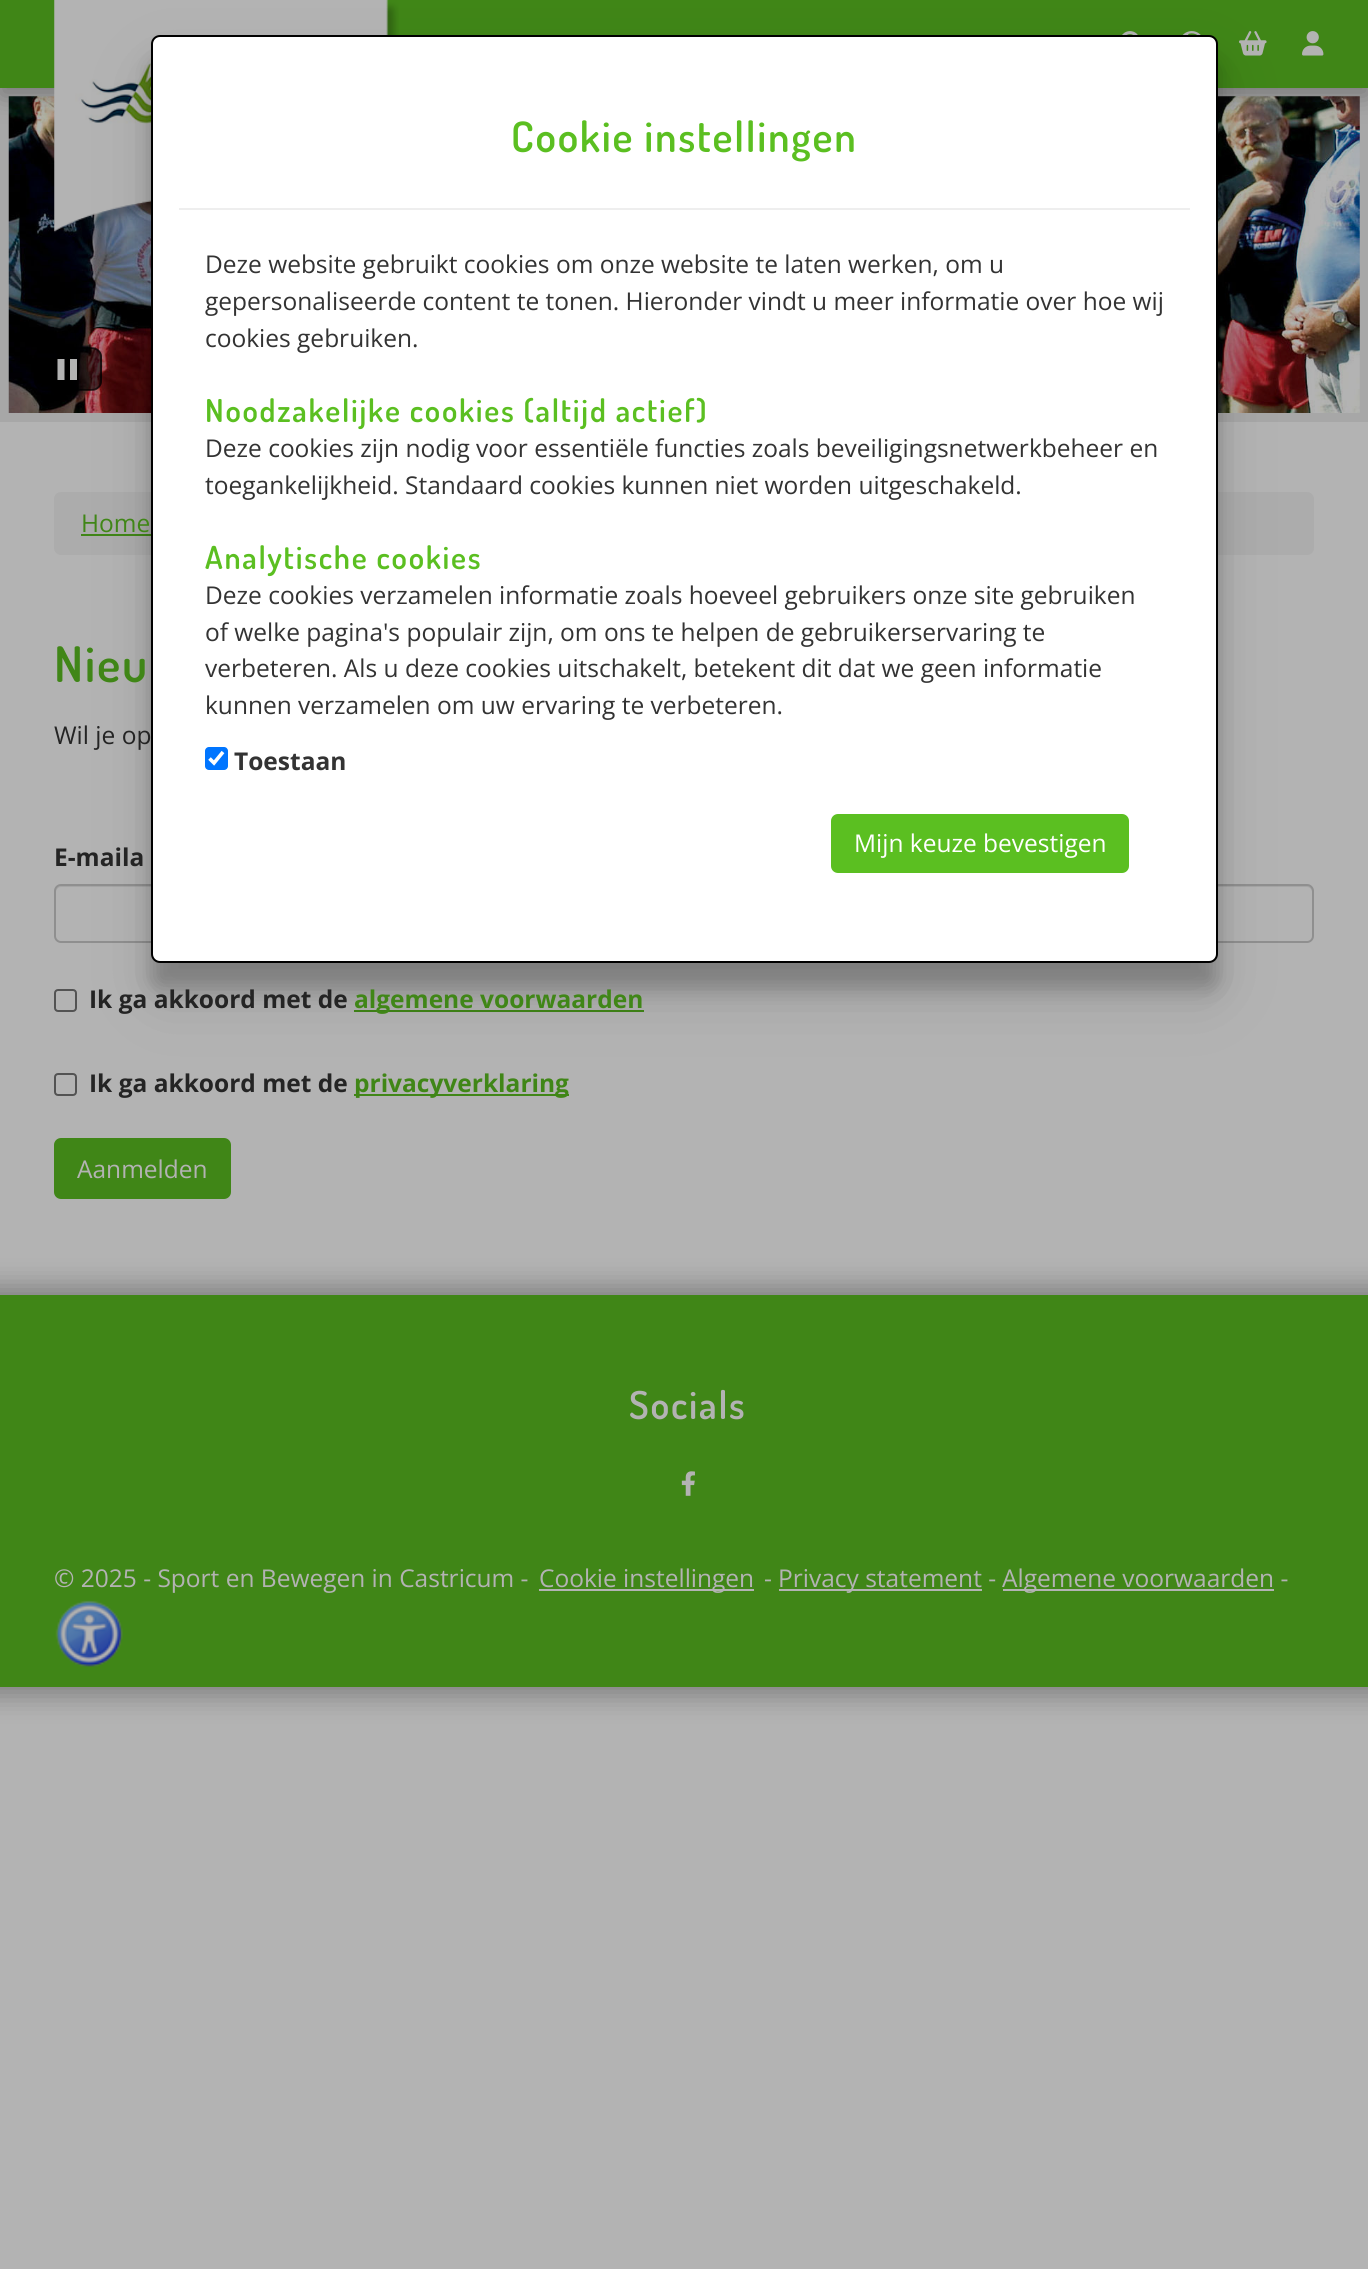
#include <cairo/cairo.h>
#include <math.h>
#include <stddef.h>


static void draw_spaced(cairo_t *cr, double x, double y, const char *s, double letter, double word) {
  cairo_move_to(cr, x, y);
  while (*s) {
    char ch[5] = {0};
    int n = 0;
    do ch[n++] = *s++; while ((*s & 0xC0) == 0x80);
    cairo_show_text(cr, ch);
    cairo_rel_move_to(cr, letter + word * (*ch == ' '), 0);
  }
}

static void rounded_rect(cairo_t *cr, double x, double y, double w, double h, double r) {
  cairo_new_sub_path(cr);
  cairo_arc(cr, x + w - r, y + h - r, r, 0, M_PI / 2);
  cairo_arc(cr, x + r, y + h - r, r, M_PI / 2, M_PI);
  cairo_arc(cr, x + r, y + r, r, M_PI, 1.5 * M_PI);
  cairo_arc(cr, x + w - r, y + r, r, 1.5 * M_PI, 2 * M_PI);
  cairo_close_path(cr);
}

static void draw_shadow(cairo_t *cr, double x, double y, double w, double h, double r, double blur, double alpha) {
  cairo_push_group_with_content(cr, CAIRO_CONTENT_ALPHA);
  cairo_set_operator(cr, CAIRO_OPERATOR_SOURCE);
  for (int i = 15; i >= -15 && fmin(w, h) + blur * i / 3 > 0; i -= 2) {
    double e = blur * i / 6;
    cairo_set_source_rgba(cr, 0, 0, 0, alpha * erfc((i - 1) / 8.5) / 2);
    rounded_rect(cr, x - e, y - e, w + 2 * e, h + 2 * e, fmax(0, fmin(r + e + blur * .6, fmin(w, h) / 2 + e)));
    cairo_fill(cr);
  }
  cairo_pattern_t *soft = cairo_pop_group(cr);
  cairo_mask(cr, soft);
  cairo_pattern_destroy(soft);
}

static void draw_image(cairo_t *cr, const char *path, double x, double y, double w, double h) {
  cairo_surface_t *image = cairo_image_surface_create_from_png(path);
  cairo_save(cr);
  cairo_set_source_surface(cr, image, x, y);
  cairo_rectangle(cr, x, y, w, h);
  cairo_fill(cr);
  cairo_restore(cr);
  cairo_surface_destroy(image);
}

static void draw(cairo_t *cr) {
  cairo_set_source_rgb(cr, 179 / 255.0, 179 / 255.0, 179 / 255.0);
  cairo_paint(cr);
  cairo_set_source_rgb(cr, 167 / 255.0, 167 / 255.0, 167 / 255.0);
  cairo_rectangle(cr, 0, 88, 1368, 334);
  cairo_fill(cr);
  draw_image(cr, "images/6.png", 8, 96, 1352, 317);
  cairo_set_source_rgb(cr, 35 / 255.0, 35 / 255.0, 35 / 255.0);
  draw_shadow(cr, 0, 9, 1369, 87, 0, 13, 0.35);
  cairo_set_source_rgb(cr, 64 / 255.0, 134 / 255.0, 23 / 255.0);
  cairo_rectangle(cr, 0, 0, 1368, 88);
  cairo_fill(cr);
  draw_image(cr, "images/1.png", 54, 0, 345, 233);
  draw_image(cr, "images/2.png", 1122, 31, 16, 4);
  draw_image(cr, "images/3.png", 1182, 31, 19, 4);
  draw_image(cr, "images/4.png", 1239, 31, 28, 25);
  draw_image(cr, "images/5.png", 1302, 31, 22, 25);
  cairo_set_source_rgba(cr, 0, 0, 0, 0.6);
  rounded_rect(cr, 35, 348, 67, 42, 9);
  cairo_fill(cr);
  rounded_rect(cr, 35, 348, 66, 42, 9);
  cairo_stroke(cr);
  cairo_new_path(cr);
  cairo_move_to(cr, 61, 359);
  cairo_line_to(cr, 61, 380);
  cairo_close_path(cr);
  cairo_move_to(cr, 73.5, 359);
  cairo_line_to(cr, 73.5, 380);
  cairo_close_path(cr);
  cairo_set_source_rgb(cr, 179 / 255.0, 179 / 255.0, 179 / 255.0);
  cairo_set_line_width(cr, 7);
  cairo_stroke(cr);
  cairo_set_source_rgb(cr, 172 / 255.0, 172 / 255.0, 172 / 255.0);
  rounded_rect(cr, 54, 492, 1260, 63, 7);
  cairo_fill(cr);
  cairo_set_source_rgb(cr, 64 / 255.0, 134 / 255.0, 23 / 255.0);
  cairo_rectangle(cr, 81, 534, 70, 2);
  cairo_fill(cr);
  cairo_set_source_rgb(cr, 165 / 255.0, 165 / 255.0, 165 / 255.0);
  cairo_new_path(cr);
  cairo_move_to(cr, 61, 887);
  cairo_line_to(cr, 1307, 887);
  cairo_curve_to(cr, 1310, 887, 1312, 890, 1312, 892);
  cairo_line_to(cr, 1312, 938);
  cairo_line_to(cr, 1311, 941);
  cairo_curve_to(cr, 1312, 940, 1313, 938, 1313, 937);
  cairo_line_to(cr, 1313, 891);
  cairo_curve_to(cr, 1313, 888, 1311, 886, 1308, 886);
  cairo_line_to(cr, 61, 886);
  cairo_curve_to(cr, 58, 886, 56, 888, 56, 891);
  cairo_line_to(cr, 56, 892);
  cairo_curve_to(cr, 56, 890, 58, 887, 61, 887);
  cairo_close_path(cr);
  cairo_fill(cr);
  rounded_rect(cr, 55, 885, 1258, 57, 6);
  cairo_set_source_rgb(cr, 143 / 255.0, 143 / 255.0, 143 / 255.0);
  cairo_set_line_width(cr, 2);
  cairo_stroke(cr);
  cairo_set_source_rgb(cr, 64 / 255.0, 134 / 255.0, 23 / 255.0);
  cairo_rectangle(cr, 354, 1010, 290, 2);
  cairo_fill(cr);
  cairo_set_source_rgb(cr, 0, 0, 0);
  draw_shadow(cr, 151, 61, 1067, 928, 9, 10.5, 0.22);
  rounded_rect(cr, 55, 990, 21, 21, 3);
  cairo_set_source_rgb(cr, 83 / 255.0, 83 / 255.0, 83 / 255.0);
  cairo_stroke(cr);
  rounded_rect(cr, 55, 1074, 21, 21, 3);
  cairo_stroke(cr);
  cairo_set_source_rgb(cr, 64 / 255.0, 134 / 255.0, 23 / 255.0);
  cairo_rectangle(cr, 354, 1094, 215, 2);
  cairo_fill(cr);
  cairo_set_source_rgb(cr, 0, 0, 0);
  draw_shadow(cr, 151, 68, 1067, 928, 9, 33, 0.12);
  cairo_set_source_rgb(cr, 1, 1, 1);
  rounded_rect(cr, 152, 36, 1065, 926, 8);
  cairo_fill_preserve(cr);
  cairo_set_source_rgb(cr, 0, 0, 0);
  cairo_stroke(cr);
  cairo_set_source_rgb(cr, 238 / 255.0, 238 / 255.0, 238 / 255.0);
  cairo_rectangle(cr, 179, 208, 1011, 2);
  cairo_fill(cr);
  cairo_set_source_rgb(cr, 0, 117 / 255.0, 1);
  rounded_rect(cr, 205, 747, 23, 23, 4);
  cairo_fill(cr);
  cairo_new_path(cr);
  cairo_move_to(cr, 209.5, 758.5);
  cairo_line_to(cr, 214, 763);
  cairo_line_to(cr, 223, 752);
  cairo_set_source_rgb(cr, 1, 1, 1);
  cairo_set_line_width(cr, 3.6);
  cairo_stroke(cr);
  cairo_set_source_rgb(cr, 91 / 255.0, 191 / 255.0, 33 / 255.0);
  rounded_rect(cr, 832, 815, 296, 57, 6);
  cairo_fill_preserve(cr);
  cairo_set_line_width(cr, 2);
  cairo_stroke(cr);
  cairo_set_source_rgb(cr, 64 / 255.0, 134 / 255.0, 23 / 255.0);
  rounded_rect(cr, 55, 1139, 175, 59, 6);
  cairo_fill_preserve(cr);
  cairo_stroke(cr);
  cairo_set_source_rgb(cr, 35 / 255.0, 35 / 255.0, 35 / 255.0);
  draw_shadow(cr, -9, 1286, 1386, 410, 0, 13, 0.35);
  cairo_set_source_rgb(cr, 64 / 255.0, 134 / 255.0, 23 / 255.0);
  cairo_rectangle(cr, 0, 1295, 1368, 392);
  cairo_fill(cr);
  draw_image(cr, "images/7.png", 681, 1471, 14, 25);
  cairo_set_source_rgb(cr, 179 / 255.0, 179 / 255.0, 179 / 255.0);
  cairo_rectangle(cr, 539, 1589, 215, 2);
  cairo_fill(cr);
  cairo_rectangle(cr, 779, 1589, 203, 2);
  cairo_fill(cr);
  cairo_rectangle(cr, 1003, 1589, 271, 2);
  cairo_fill(cr);
  draw_image(cr, "images/8.png", 55, 1600, 68, 67);
  cairo_select_font_face(cr, "Dosis SemiBold", CAIRO_FONT_SLANT_NORMAL, CAIRO_FONT_WEIGHT_NORMAL);
  cairo_set_font_size(cr, 42);
  cairo_set_source_rgb(cr, 91 / 255.0, 191 / 255.0, 33 / 255.0);
  draw_spaced(cr, 511, 152, "Cookie instellingen", 1.75, 0);
  cairo_select_font_face(cr, "Open Sans", CAIRO_FONT_SLANT_NORMAL, CAIRO_FONT_WEIGHT_NORMAL);
  cairo_set_font_size(cr, 24.5);
  cairo_set_source_rgb(cr, 51 / 255.0, 51 / 255.0, 51 / 255.0);
  cairo_move_to(cr, 205, 273);
  cairo_show_text(cr, "Deze website gebruikt cookies om onze website te laten werken, om u");
  cairo_move_to(cr, 205, 310);
  cairo_show_text(cr, "gepersonaliseerde content te tonen. Hieronder vindt u meer informatie over hoe wij");
  cairo_move_to(cr, 205, 347);
  cairo_show_text(cr, "cookies gebruiken.");
  cairo_select_font_face(cr, "Dosis SemiBold", CAIRO_FONT_SLANT_NORMAL, CAIRO_FONT_WEIGHT_NORMAL);
  cairo_set_font_size(cr, 31.5);
  cairo_set_source_rgb(cr, 91 / 255.0, 191 / 255.0, 33 / 255.0);
  draw_spaced(cr, 205, 422, "Noodzakelijke cookies (altijd actief)", 1.75, 0);
  cairo_select_font_face(cr, "Open Sans", CAIRO_FONT_SLANT_NORMAL, CAIRO_FONT_WEIGHT_NORMAL);
  cairo_set_font_size(cr, 24.5);
  cairo_set_source_rgb(cr, 51 / 255.0, 51 / 255.0, 51 / 255.0);
  cairo_move_to(cr, 205, 457);
  cairo_show_text(cr, "Deze cookies zijn nodig voor essentiële functies zoals beveiligingsnetwerkbeheer en");
  cairo_move_to(cr, 205, 494);
  cairo_show_text(cr, "toegankelijkheid. Standaard cookies kunnen niet worden uitgeschakeld.");
  cairo_select_font_face(cr, "Dosis SemiBold", CAIRO_FONT_SLANT_NORMAL, CAIRO_FONT_WEIGHT_NORMAL);
  cairo_set_font_size(cr, 31.5);
  cairo_set_source_rgb(cr, 91 / 255.0, 191 / 255.0, 33 / 255.0);
  draw_spaced(cr, 205, 569, "Analytische cookies", 1.75, 0);
  cairo_select_font_face(cr, "Open Sans", CAIRO_FONT_SLANT_NORMAL, CAIRO_FONT_WEIGHT_NORMAL);
  cairo_set_font_size(cr, 24.5);
  cairo_set_source_rgb(cr, 51 / 255.0, 51 / 255.0, 51 / 255.0);
  cairo_move_to(cr, 205, 604);
  cairo_show_text(cr, "Deze cookies verzamelen informatie zoals hoeveel gebruikers onze site gebruiken");
  cairo_move_to(cr, 205, 641);
  cairo_show_text(cr, "of welke pagina's populair zijn, om ons te helpen de gebruikerservaring te");
  cairo_move_to(cr, 205, 677);
  cairo_show_text(cr, "verbeteren. Als u deze cookies uitschakelt, betekent dit dat we geen informatie");
  cairo_move_to(cr, 205, 714);
  cairo_show_text(cr, "kunnen verzamelen om uw ervaring te verbeteren.");
  cairo_select_font_face(cr, "Open Sans", CAIRO_FONT_SLANT_NORMAL, CAIRO_FONT_WEIGHT_BOLD);
  cairo_move_to(cr, 234, 770);
  cairo_show_text(cr, "Toestaan");
  cairo_select_font_face(cr, "Open Sans", CAIRO_FONT_SLANT_NORMAL, CAIRO_FONT_WEIGHT_NORMAL);
  cairo_set_source_rgb(cr, 1, 1, 1);
  cairo_move_to(cr, 854, 852);
  cairo_show_text(cr, "Mijn keuze bevestigen");
  cairo_set_source_rgb(cr, 64 / 255.0, 134 / 255.0, 23 / 255.0);
  cairo_move_to(cr, 81, 532);
  cairo_show_text(cr, "Home");
  cairo_select_font_face(cr, "Dosis SemiBold", CAIRO_FONT_SLANT_NORMAL, CAIRO_FONT_WEIGHT_NORMAL);
  cairo_set_font_size(cr, 49);
  draw_spaced(cr, 54, 682, "Nieu", 1.75, 0);
  cairo_select_font_face(cr, "Open Sans", CAIRO_FONT_SLANT_NORMAL, CAIRO_FONT_WEIGHT_NORMAL);
  cairo_set_font_size(cr, 24.5);
  cairo_set_source_rgb(cr, 36 / 255.0, 36 / 255.0, 36 / 255.0);
  cairo_move_to(cr, 54, 744);
  cairo_show_text(cr, "Wil je op");
  cairo_select_font_face(cr, "Open Sans", CAIRO_FONT_SLANT_NORMAL, CAIRO_FONT_WEIGHT_BOLD);
  cairo_move_to(cr, 54, 866);
  cairo_show_text(cr, "E-maila");
  cairo_move_to(cr, 89, 1008);
  cairo_show_text(cr, "Ik ga akkoord met de");
  cairo_set_source_rgb(cr, 64 / 255.0, 134 / 255.0, 23 / 255.0);
  cairo_move_to(cr, 354, 1008);
  cairo_show_text(cr, "algemene voorwaarden");
  cairo_set_source_rgb(cr, 36 / 255.0, 36 / 255.0, 36 / 255.0);
  cairo_move_to(cr, 89, 1092);
  cairo_show_text(cr, "Ik ga akkoord met de");
  cairo_set_source_rgb(cr, 64 / 255.0, 134 / 255.0, 23 / 255.0);
  cairo_move_to(cr, 354, 1092);
  cairo_show_text(cr, "privacyverklaring");
  cairo_select_font_face(cr, "Open Sans", CAIRO_FONT_SLANT_NORMAL, CAIRO_FONT_WEIGHT_NORMAL);
  cairo_set_source_rgb(cr, 179 / 255.0, 179 / 255.0, 179 / 255.0);
  cairo_move_to(cr, 77, 1178);
  cairo_show_text(cr, "Aanmelden");
  cairo_select_font_face(cr, "Dosis SemiBold", CAIRO_FONT_SLANT_NORMAL, CAIRO_FONT_WEIGHT_NORMAL);
  cairo_set_font_size(cr, 38.5);
  draw_spaced(cr, 629, 1419, "Socials", 1.75, 0);
  cairo_select_font_face(cr, "Open Sans", CAIRO_FONT_SLANT_NORMAL, CAIRO_FONT_WEIGHT_NORMAL);
  cairo_set_font_size(cr, 24.5);
  cairo_move_to(cr, 54, 1587);
  cairo_show_text(cr, "© 2025 - Sport en Bewegen in Castricum -");
  cairo_move_to(cr, 539, 1587);
  cairo_show_text(cr, "Cookie instellingen");
  cairo_move_to(cr, 764, 1587);
  cairo_show_text(cr, "-");
  cairo_move_to(cr, 778, 1587);
  cairo_show_text(cr, "Privacy statement -");
  cairo_move_to(cr, 1002, 1587);
  cairo_show_text(cr, "Algemene voorwaarden -");
}

int main(void) {
  cairo_surface_t *surface = cairo_image_surface_create(CAIRO_FORMAT_RGB24, 1368, 2269);
  cairo_t *cr = cairo_create(surface);
  cairo_font_options_t *options = cairo_font_options_create();
  cairo_font_options_set_hint_metrics(options, CAIRO_HINT_METRICS_OFF);
  cairo_font_options_set_hint_style(options, CAIRO_HINT_STYLE_NONE);
  cairo_set_font_options(cr, options);
  cairo_set_miter_limit(cr, 4);
  draw(cr);
  cairo_surface_write_to_png(surface, "out.png");
  cairo_font_options_destroy(options);
  cairo_destroy(cr);
  cairo_surface_destroy(surface);
  return 0;
}
